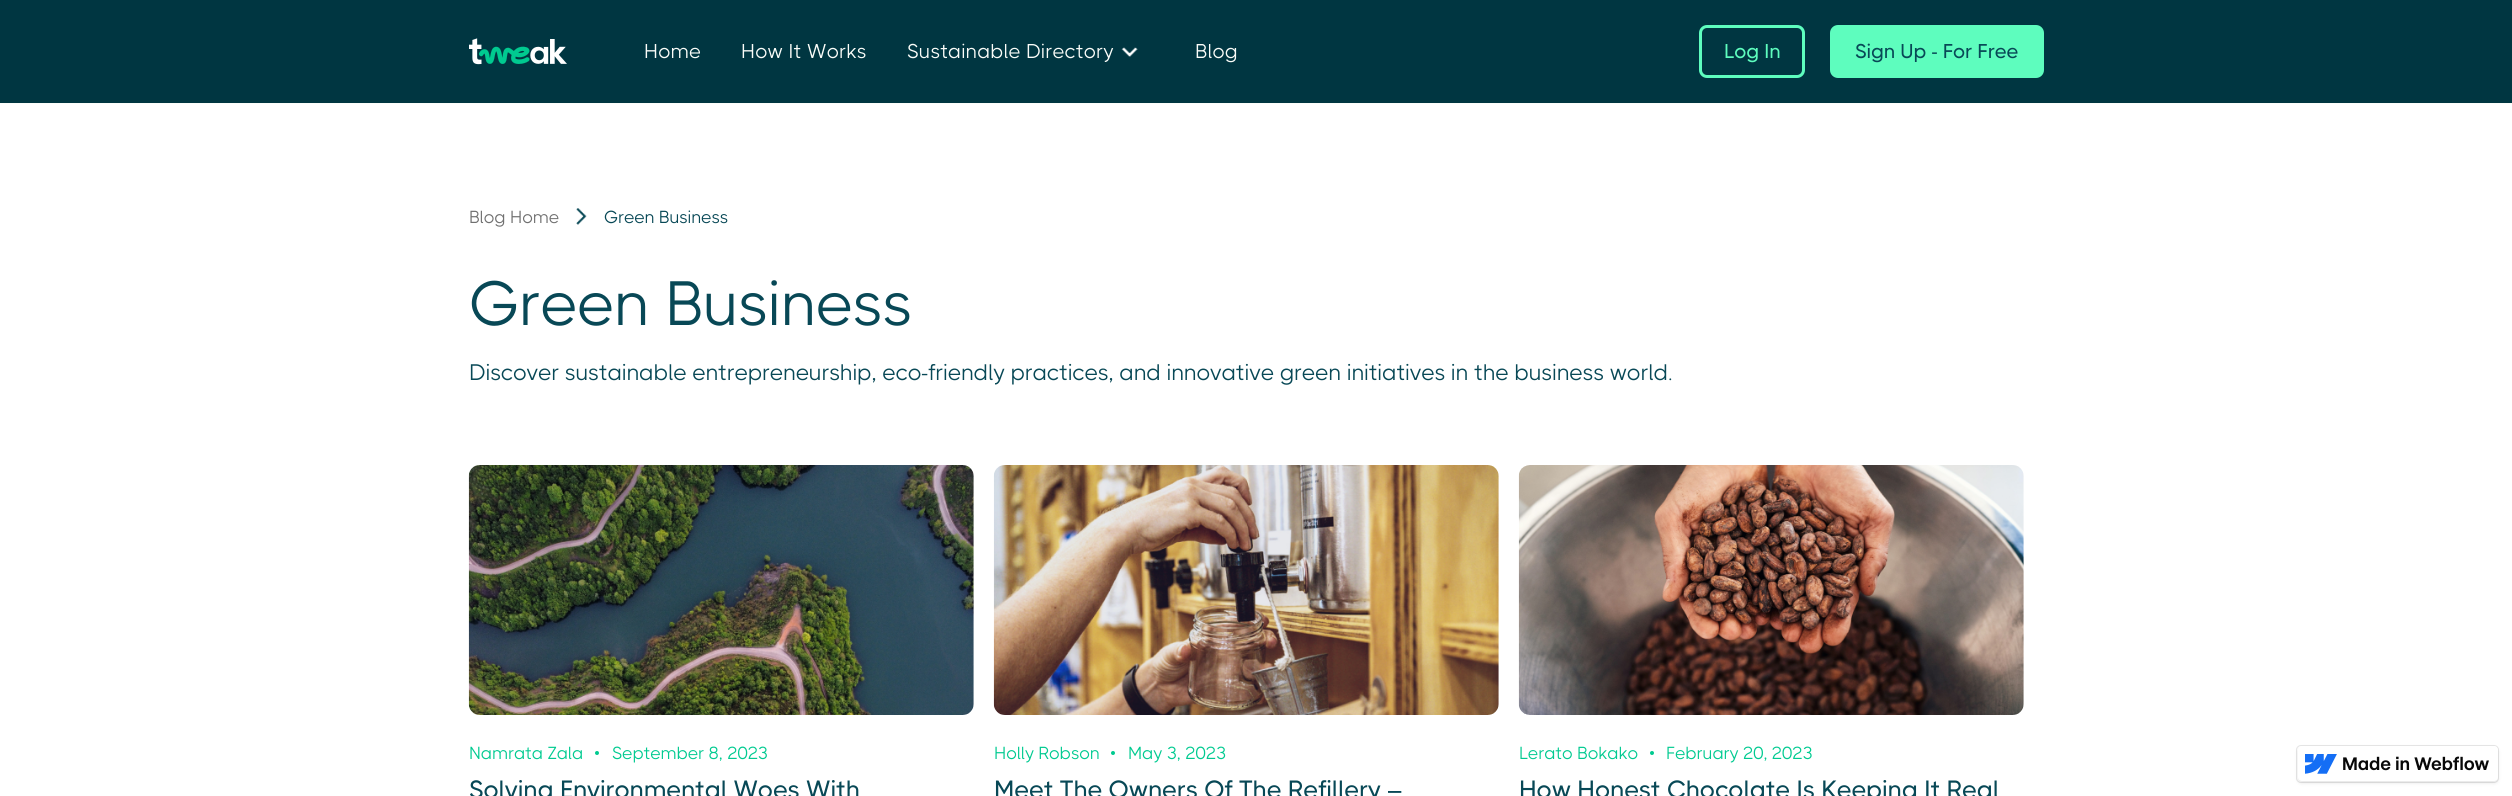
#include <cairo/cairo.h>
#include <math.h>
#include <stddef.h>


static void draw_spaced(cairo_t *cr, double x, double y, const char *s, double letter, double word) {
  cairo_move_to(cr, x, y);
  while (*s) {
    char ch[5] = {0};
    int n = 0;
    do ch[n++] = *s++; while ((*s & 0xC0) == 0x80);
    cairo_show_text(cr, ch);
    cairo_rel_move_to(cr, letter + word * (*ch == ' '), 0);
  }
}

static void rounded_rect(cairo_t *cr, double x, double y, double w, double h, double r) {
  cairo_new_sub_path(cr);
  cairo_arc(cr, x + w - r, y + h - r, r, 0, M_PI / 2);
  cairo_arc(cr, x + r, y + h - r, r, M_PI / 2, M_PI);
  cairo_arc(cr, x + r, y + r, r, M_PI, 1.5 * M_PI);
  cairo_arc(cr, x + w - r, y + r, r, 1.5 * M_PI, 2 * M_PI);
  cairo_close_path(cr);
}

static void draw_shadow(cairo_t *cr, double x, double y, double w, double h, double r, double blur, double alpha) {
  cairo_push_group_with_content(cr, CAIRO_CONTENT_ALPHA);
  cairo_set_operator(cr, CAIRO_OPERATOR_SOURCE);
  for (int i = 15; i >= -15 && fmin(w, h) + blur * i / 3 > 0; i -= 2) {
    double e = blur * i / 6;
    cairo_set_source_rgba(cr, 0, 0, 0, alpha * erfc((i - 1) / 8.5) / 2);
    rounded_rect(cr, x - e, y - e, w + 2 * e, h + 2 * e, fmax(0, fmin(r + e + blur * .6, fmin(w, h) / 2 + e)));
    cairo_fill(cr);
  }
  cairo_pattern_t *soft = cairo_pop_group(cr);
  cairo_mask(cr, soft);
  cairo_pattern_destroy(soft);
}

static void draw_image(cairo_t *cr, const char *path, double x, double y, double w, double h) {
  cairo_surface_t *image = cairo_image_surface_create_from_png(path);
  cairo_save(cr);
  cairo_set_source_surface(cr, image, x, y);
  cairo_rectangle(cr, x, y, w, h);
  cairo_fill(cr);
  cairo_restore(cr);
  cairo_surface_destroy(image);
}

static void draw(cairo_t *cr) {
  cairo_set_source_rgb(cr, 1, 1, 1);
  cairo_paint(cr);
  cairo_set_source_rgb(cr, 0, 54 / 255.0, 65 / 255.0);
  cairo_rectangle(cr, 0, 0, 2512, 103);
  cairo_fill(cr);
  cairo_set_source_rgb(cr, 251 / 255.0, 253 / 255.0, 249 / 255.0);
  cairo_rectangle(cr, 0, 103, 2512, 1);
  cairo_fill(cr);
  draw_image(cr, "images/1.png", 469, 38, 98, 27);
  draw_image(cr, "images/2.png", 1121, 47, 17, 10);
  rounded_rect(cr, 1700.5, 26.5, 103, 50, 6.5);
  cairo_set_source_rgb(cr, 94 / 255.0, 253 / 255.0, 190 / 255.0);
  cairo_set_line_width(cr, 3);
  cairo_stroke(cr);
  rounded_rect(cr, 1831.5, 26.5, 211, 50, 6.5);
  cairo_fill_preserve(cr);
  cairo_stroke(cr);
  draw_image(cr, "images/3.png", 576, 208, 11, 17);
  draw_image(cr, "images/4.png", 468, 465, 506, 250);
  cairo_set_source_rgb(cr, 0, 202 / 255.0, 144 / 255.0);
  cairo_arc(cr, 597, 753, 2, 0, 2 * M_PI);
  cairo_fill(cr);
  draw_image(cr, "images/5.png", 993, 465, 506, 250);
  cairo_arc(cr, 1113, 753, 2, 0, 2 * M_PI);
  cairo_fill(cr);
  draw_image(cr, "images/6.png", 1518, 465, 506, 250);
  cairo_arc(cr, 1652, 753, 2, 0, 2 * M_PI);
  cairo_fill(cr);
  cairo_set_source_rgb(cr, 0, 0, 0);
  draw_shadow(cr, 2298, 748, 200, 35, 4, 2, 0.1);
  rounded_rect(cr, 2296.5, 745.5, 202, 37, 4.5);
  cairo_set_source_rgba(cr, 0, 0, 0, 0.1);
  cairo_set_line_width(cr, 1);
  cairo_stroke(cr);
  cairo_set_source_rgb(cr, 1, 1, 1);
  rounded_rect(cr, 2298, 746, 200, 35, 4);
  cairo_fill(cr);
  draw_image(cr, "images/7.png", 2305, 754, 32, 20);
  draw_image(cr, "images/8.png", 2343, 756, 146, 15);
  cairo_select_font_face(cr, "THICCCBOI", CAIRO_FONT_SLANT_NORMAL, CAIRO_FONT_WEIGHT_NORMAL);
  cairo_set_font_size(cr, 20);
  cairo_set_source_rgb(cr, 251 / 255.0, 253 / 255.0, 249 / 255.0);
  draw_spaced(cr, 644, 58, "Home", 0.3, 0);
  draw_spaced(cr, 741, 58, "How It Works", 0.3, 0);
  draw_spaced(cr, 907, 58, "Sustainable Directory", 0.3, 0);
  draw_spaced(cr, 1195, 58, "Blog", 0.3, 0);
  cairo_select_font_face(cr, "THICCCBOI Medium", CAIRO_FONT_SLANT_NORMAL, CAIRO_FONT_WEIGHT_NORMAL);
  cairo_set_source_rgb(cr, 94 / 255.0, 253 / 255.0, 190 / 255.0);
  cairo_move_to(cr, 1724, 58);
  cairo_show_text(cr, "Log In");
  cairo_set_source_rgb(cr, 8 / 255.0, 72 / 255.0, 86 / 255.0);
  cairo_move_to(cr, 1855, 58);
  cairo_show_text(cr, "Sign Up - For Free");
  cairo_select_font_face(cr, "THICCCBOI", CAIRO_FONT_SLANT_NORMAL, CAIRO_FONT_WEIGHT_NORMAL);
  cairo_set_font_size(cr, 17.5);
  cairo_set_source_rgb(cr, 112 / 255.0, 112 / 255.0, 112 / 255.0);
  cairo_move_to(cr, 469, 223);
  cairo_show_text(cr, "Blog Home");
  cairo_set_source_rgb(cr, 8 / 255.0, 72 / 255.0, 86 / 255.0);
  cairo_move_to(cr, 604, 223);
  cairo_show_text(cr, "Green Business");
  cairo_set_font_size(cr, 62.5);
  cairo_move_to(cr, 469, 325);
  cairo_show_text(cr, "Green Business");
  cairo_set_font_size(cr, 22.5);
  cairo_move_to(cr, 469, 380);
  cairo_show_text(cr, "Discover sustainable entrepreneurship, eco-friendly practices, and innovative green initiatives in the business world.");
  cairo_set_font_size(cr, 17.5);
  cairo_set_source_rgb(cr, 0, 202 / 255.0, 144 / 255.0);
  cairo_move_to(cr, 469, 759);
  cairo_show_text(cr, "Namrata Zala");
  cairo_move_to(cr, 612, 759);
  cairo_show_text(cr, "September 8, 2023");
  cairo_select_font_face(cr, "THICCCBOI Medium", CAIRO_FONT_SLANT_NORMAL, CAIRO_FONT_WEIGHT_NORMAL);
  cairo_set_font_size(cr, 25);
  cairo_set_source_rgb(cr, 8 / 255.0, 72 / 255.0, 86 / 255.0);
  cairo_move_to(cr, 469, 798);
  cairo_show_text(cr, "Solving Environmental Woes With");
  cairo_select_font_face(cr, "THICCCBOI", CAIRO_FONT_SLANT_NORMAL, CAIRO_FONT_WEIGHT_NORMAL);
  cairo_set_font_size(cr, 17.5);
  cairo_set_source_rgb(cr, 0, 202 / 255.0, 144 / 255.0);
  cairo_move_to(cr, 994, 759);
  cairo_show_text(cr, "Holly Robson");
  cairo_move_to(cr, 1128, 759);
  cairo_show_text(cr, "May 3, 2023");
  cairo_select_font_face(cr, "THICCCBOI Medium", CAIRO_FONT_SLANT_NORMAL, CAIRO_FONT_WEIGHT_NORMAL);
  cairo_set_font_size(cr, 25);
  cairo_set_source_rgb(cr, 8 / 255.0, 72 / 255.0, 86 / 255.0);
  cairo_move_to(cr, 994, 798);
  cairo_show_text(cr, "Meet The Owners Of The Refillery –");
  cairo_select_font_face(cr, "THICCCBOI", CAIRO_FONT_SLANT_NORMAL, CAIRO_FONT_WEIGHT_NORMAL);
  cairo_set_font_size(cr, 17.5);
  cairo_set_source_rgb(cr, 0, 202 / 255.0, 144 / 255.0);
  cairo_move_to(cr, 1519, 759);
  cairo_show_text(cr, "Lerato Bokako");
  cairo_move_to(cr, 1666, 759);
  cairo_show_text(cr, "February 20, 2023");
  cairo_select_font_face(cr, "THICCCBOI Medium", CAIRO_FONT_SLANT_NORMAL, CAIRO_FONT_WEIGHT_NORMAL);
  cairo_set_font_size(cr, 25);
  cairo_set_source_rgb(cr, 8 / 255.0, 72 / 255.0, 86 / 255.0);
  cairo_move_to(cr, 1519, 798);
  cairo_show_text(cr, "How Honest Chocolate Is Keeping It Real");
}

int main(void) {
  cairo_surface_t *surface = cairo_image_surface_create(CAIRO_FORMAT_RGB24, 2512, 796);
  cairo_t *cr = cairo_create(surface);
  cairo_font_options_t *options = cairo_font_options_create();
  cairo_font_options_set_hint_metrics(options, CAIRO_HINT_METRICS_OFF);
  cairo_font_options_set_hint_style(options, CAIRO_HINT_STYLE_NONE);
  cairo_set_font_options(cr, options);
  cairo_set_miter_limit(cr, 4);
  draw(cr);
  cairo_surface_write_to_png(surface, "out.png");
  cairo_font_options_destroy(options);
  cairo_destroy(cr);
  cairo_surface_destroy(surface);
  return 0;
}
